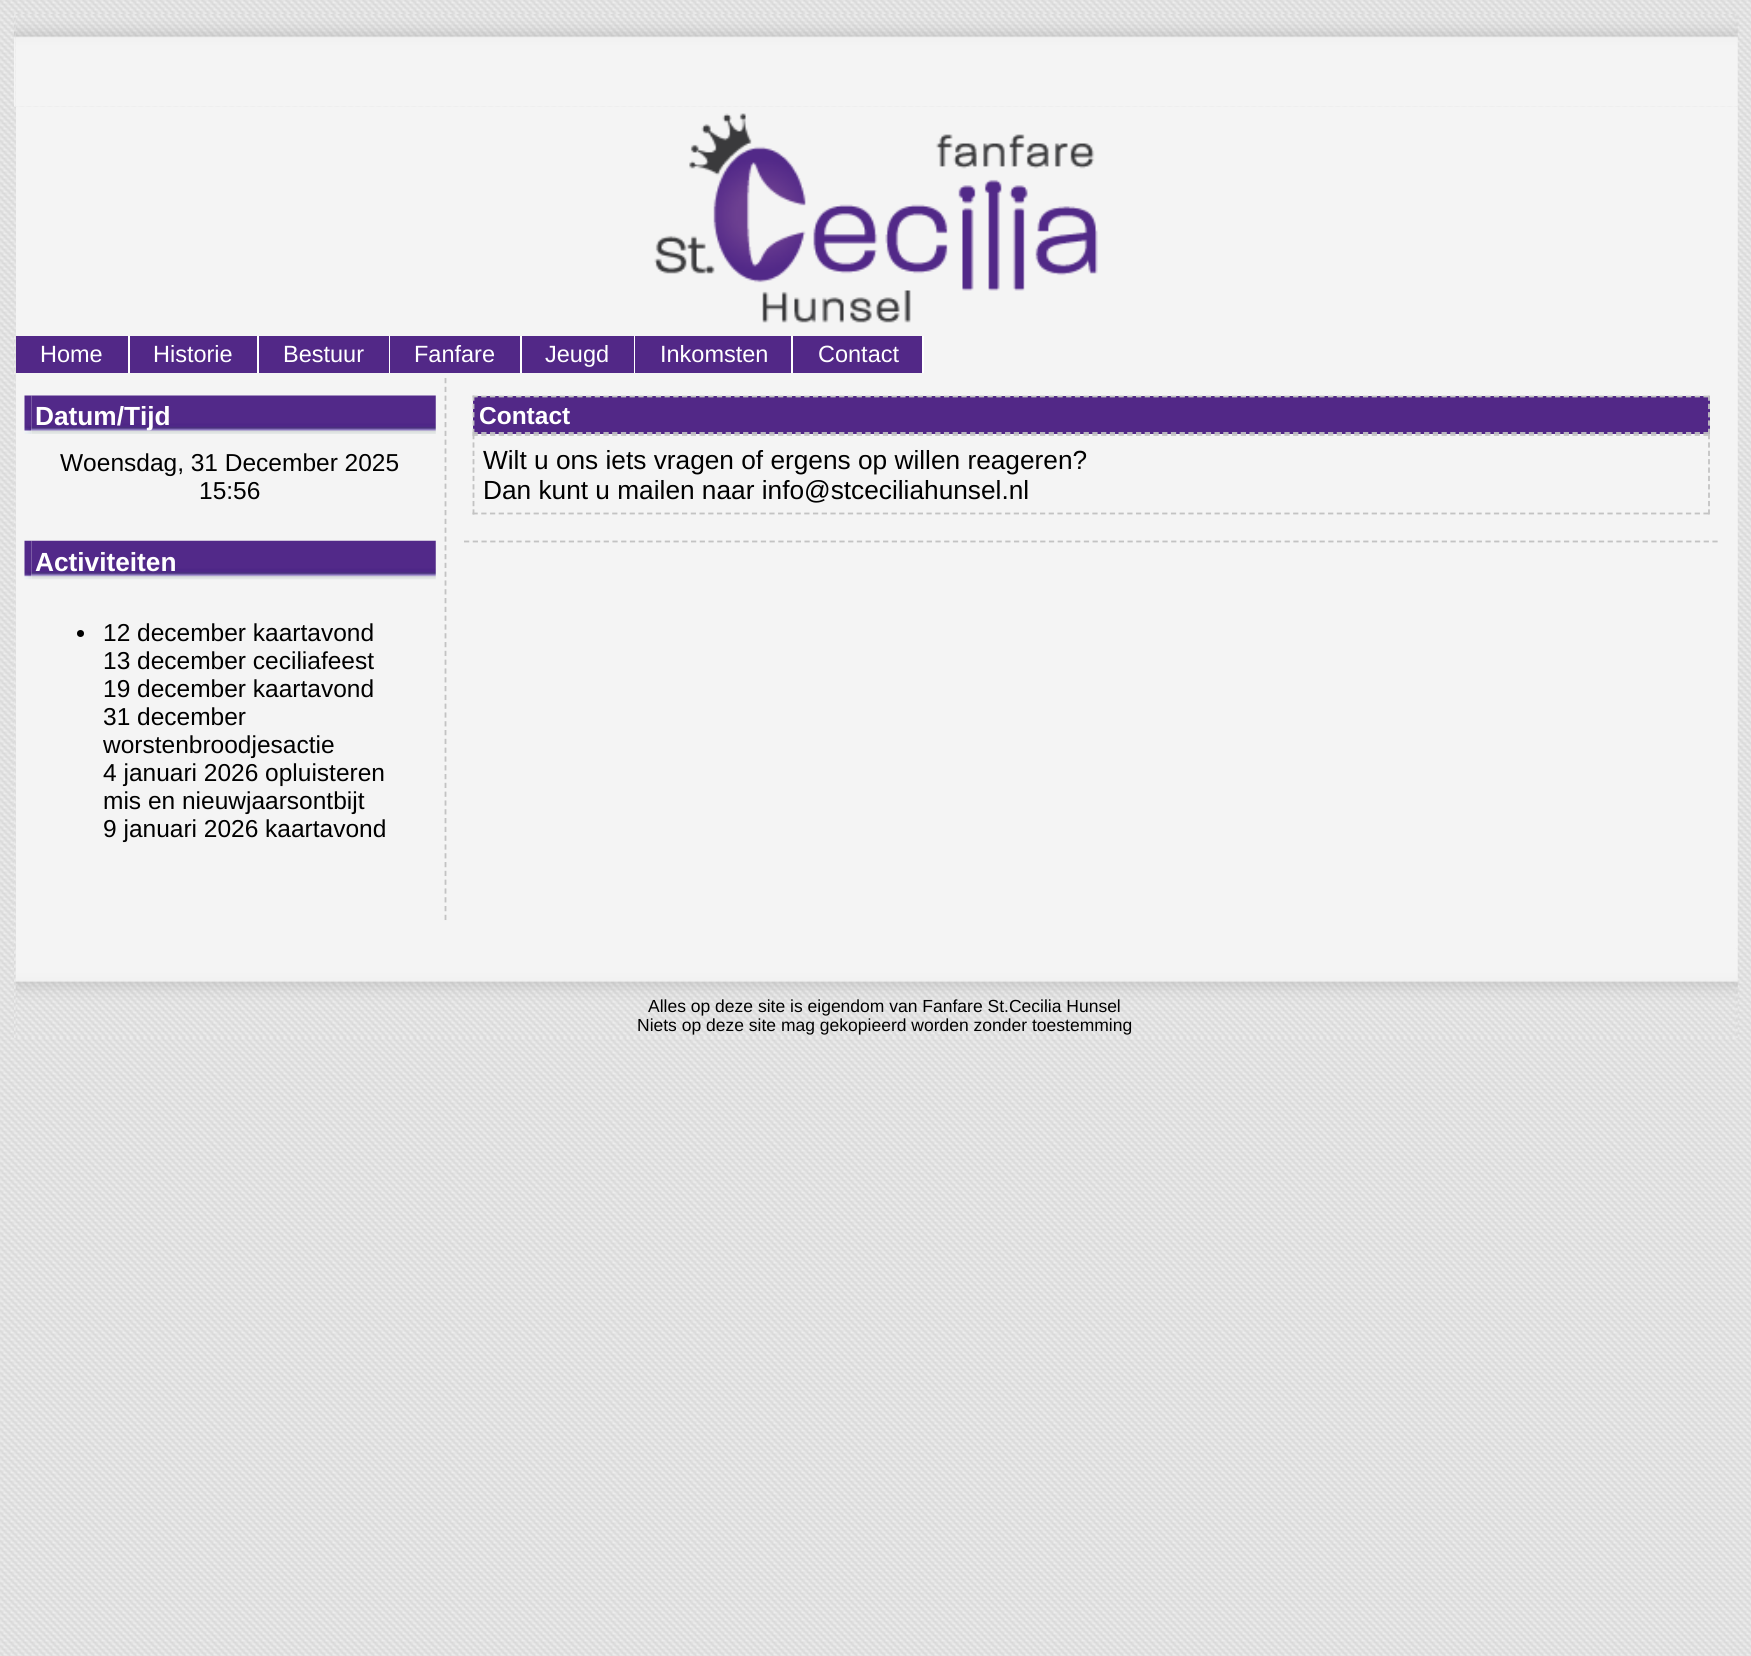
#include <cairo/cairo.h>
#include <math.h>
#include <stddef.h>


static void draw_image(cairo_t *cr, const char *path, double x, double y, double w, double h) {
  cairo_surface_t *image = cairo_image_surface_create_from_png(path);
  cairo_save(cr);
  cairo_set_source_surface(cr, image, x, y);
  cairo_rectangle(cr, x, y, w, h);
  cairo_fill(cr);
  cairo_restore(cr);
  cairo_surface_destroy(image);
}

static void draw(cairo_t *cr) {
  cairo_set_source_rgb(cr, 1, 1, 1);
  cairo_paint(cr);
  draw_image(cr, "images/1.png", 0, 0, 1751, 1656);
  draw_image(cr, "images/2.png", 14, 14, 2, 93);
  draw_image(cr, "images/3.png", 16, 14, 1720, 93);
  draw_image(cr, "images/4.png", 1736, 14, 2, 93);
  cairo_set_source_rgb(cr, 233 / 255.0, 233 / 255.0, 233 / 255.0);
  cairo_rectangle(cr, 14, 106, 1, 1);
  cairo_fill(cr);
  cairo_set_source_rgb(cr, 244 / 255.0, 244 / 255.0, 244 / 255.0);
  cairo_rectangle(cr, 16, 107, 1720, 842);
  cairo_fill(cr);
  draw_image(cr, "images/5.png", 654, 113, 444, 210);
  draw_image(cr, "images/6.png", 1736, 107, 2, 227);
  draw_image(cr, "images/7.png", 14, 334, 2, 44);
  cairo_set_source_rgb(cr, 82 / 255.0, 40 / 255.0, 135 / 255.0);
  cairo_rectangle(cr, 16, 336, 112, 37);
  cairo_fill(cr);
  cairo_set_source_rgb(cr, 1, 1, 1);
  cairo_rectangle(cr, 128, 336, 2, 37);
  cairo_fill(cr);
  cairo_set_source_rgb(cr, 82 / 255.0, 40 / 255.0, 135 / 255.0);
  cairo_rectangle(cr, 130, 336, 127, 37);
  cairo_fill(cr);
  cairo_set_source_rgb(cr, 1, 1, 1);
  cairo_rectangle(cr, 257, 336, 2, 37);
  cairo_fill(cr);
  cairo_set_source_rgb(cr, 82 / 255.0, 40 / 255.0, 135 / 255.0);
  cairo_rectangle(cr, 259, 336, 130, 37);
  cairo_fill(cr);
  cairo_set_source_rgb(cr, 1, 1, 1);
  cairo_rectangle(cr, 389, 336, 1, 37);
  cairo_fill(cr);
  cairo_set_source_rgb(cr, 82 / 255.0, 40 / 255.0, 135 / 255.0);
  cairo_rectangle(cr, 390, 336, 130, 37);
  cairo_fill(cr);
  cairo_set_source_rgb(cr, 1, 1, 1);
  cairo_rectangle(cr, 520, 336, 2, 37);
  cairo_fill(cr);
  cairo_set_source_rgb(cr, 82 / 255.0, 40 / 255.0, 135 / 255.0);
  cairo_rectangle(cr, 522, 336, 112, 37);
  cairo_fill(cr);
  cairo_set_source_rgb(cr, 1, 1, 1);
  cairo_rectangle(cr, 634, 336, 1, 37);
  cairo_fill(cr);
  cairo_set_source_rgb(cr, 82 / 255.0, 40 / 255.0, 135 / 255.0);
  cairo_rectangle(cr, 635, 336, 156, 37);
  cairo_fill(cr);
  cairo_set_source_rgb(cr, 1, 1, 1);
  cairo_rectangle(cr, 791, 336, 2, 37);
  cairo_fill(cr);
  cairo_set_source_rgb(cr, 82 / 255.0, 40 / 255.0, 135 / 255.0);
  cairo_rectangle(cr, 793, 336, 129, 37);
  cairo_fill(cr);
  cairo_set_source_rgb(cr, 1, 1, 1);
  cairo_rectangle(cr, 922, 336, 2, 37);
  cairo_fill(cr);
  draw_image(cr, "images/8.png", 1736, 334, 2, 44);
  draw_image(cr, "images/9.png", 14, 379, 2, 569);
  cairo_new_path(cr);
  cairo_move_to(cr, 445.5, 378);
  cairo_line_to(cr, 445.5, 920.5);
  cairo_set_source_rgb(cr, 195 / 255.0, 195 / 255.0, 195 / 255.0);
  cairo_set_line_width(cr, 1.8);
  cairo_set_dash(cr, (double[]){5.25, 3.55}, 2, 0);
  cairo_stroke(cr);
  draw_image(cr, "images/10.png", 24, 395, 8, 39);
  draw_image(cr, "images/11.png", 31, 395, 405, 39);
  draw_image(cr, "images/12.png", 24, 540, 8, 40);
  draw_image(cr, "images/13.png", 31, 540, 405, 40);
  cairo_set_source_rgb(cr, 0, 0, 0);
  cairo_arc(cr, 80.5, 633.5, 3.5, 0, 2 * M_PI);
  cairo_fill(cr);
  cairo_new_path(cr);
  cairo_move_to(cr, 464, 541.5);
  cairo_line_to(cr, 1718.5, 541.5);
  cairo_set_source_rgb(cr, 195 / 255.0, 195 / 255.0, 195 / 255.0);
  cairo_set_dash(cr, (double[]){5.25, 3.48}, 2, 0);
  cairo_stroke(cr);
  cairo_set_source_rgb(cr, 82 / 255.0, 40 / 255.0, 135 / 255.0);
  cairo_rectangle(cr, 473, 396, 1237, 38);
  cairo_fill(cr);
  cairo_new_path(cr);
  cairo_move_to(cr, 472.5, 396.5);
  cairo_line_to(cr, 1710, 396.5);
  cairo_set_source_rgb(cr, 195 / 255.0, 195 / 255.0, 195 / 255.0);
  cairo_stroke(cr);
  cairo_new_path(cr);
  cairo_move_to(cr, 1709, 395.5);
  cairo_line_to(cr, 1709, 434);
  cairo_set_dash(cr, (double[]){5.25, 3.06}, 2, 0);
  cairo_stroke(cr);
  cairo_new_path(cr);
  cairo_move_to(cr, 472.5, 433);
  cairo_line_to(cr, 1710, 433);
  cairo_set_dash(cr, (double[]){5.25, 3.48}, 2, 0);
  cairo_stroke(cr);
  cairo_new_path(cr);
  cairo_move_to(cr, 473.5, 395.5);
  cairo_line_to(cr, 473.5, 434);
  cairo_set_dash(cr, (double[]){5.25, 3.06}, 2, 0);
  cairo_stroke(cr);
  cairo_new_path(cr);
  cairo_move_to(cr, 472.5, 435);
  cairo_line_to(cr, 1710, 435);
  cairo_set_dash(cr, (double[]){5.25, 3.48}, 2, 0);
  cairo_stroke(cr);
  cairo_new_path(cr);
  cairo_move_to(cr, 1709, 434);
  cairo_line_to(cr, 1709, 514.5);
  cairo_set_dash(cr, (double[]){5.25, 3.12}, 2, 0);
  cairo_stroke(cr);
  cairo_new_path(cr);
  cairo_move_to(cr, 472.5, 513.5);
  cairo_line_to(cr, 1710, 513.5);
  cairo_set_dash(cr, (double[]){5.25, 3.48}, 2, 0);
  cairo_stroke(cr);
  cairo_new_path(cr);
  cairo_move_to(cr, 473.5, 434);
  cairo_line_to(cr, 473.5, 514.5);
  cairo_set_dash(cr, (double[]){5.25, 3.12}, 2, 0);
  cairo_stroke(cr);
  draw_image(cr, "images/14.png", 1736, 378, 2, 571);
  draw_image(cr, "images/15.png", 14, 949, 2, 89);
  draw_image(cr, "images/16.png", 15, 949, 1721, 89);
  draw_image(cr, "images/17.png", 1736, 948, 2, 90);
  cairo_select_font_face(cr, "Liberation Sans", CAIRO_FONT_SLANT_NORMAL, CAIRO_FONT_WEIGHT_NORMAL);
  cairo_set_font_size(cr, 23.5);
  cairo_set_source_rgb(cr, 1, 1, 1);
  cairo_move_to(cr, 40, 362);
  cairo_show_text(cr, "Home");
  cairo_move_to(cr, 153, 362);
  cairo_show_text(cr, "Historie");
  cairo_move_to(cr, 283, 362);
  cairo_show_text(cr, "Bestuur");
  cairo_move_to(cr, 414, 362);
  cairo_show_text(cr, "Fanfare");
  cairo_move_to(cr, 545, 362);
  cairo_show_text(cr, "Jeugd");
  cairo_move_to(cr, 660, 362);
  cairo_show_text(cr, "Inkomsten");
  cairo_move_to(cr, 818, 362);
  cairo_show_text(cr, "Contact");
  cairo_select_font_face(cr, "Liberation Sans", CAIRO_FONT_SLANT_NORMAL, CAIRO_FONT_WEIGHT_BOLD);
  cairo_set_font_size(cr, 26.25);
  cairo_move_to(cr, 35, 425);
  cairo_show_text(cr, "Datum/Tijd");
  cairo_select_font_face(cr, "Liberation Sans", CAIRO_FONT_SLANT_NORMAL, CAIRO_FONT_WEIGHT_NORMAL);
  cairo_set_font_size(cr, 24.5);
  cairo_set_source_rgb(cr, 0, 0, 0);
  cairo_move_to(cr, 60, 471);
  cairo_show_text(cr, "Woensdag, 31 December 2025");
  cairo_move_to(cr, 199, 499);
  cairo_show_text(cr, "15:56");
  cairo_select_font_face(cr, "Liberation Sans", CAIRO_FONT_SLANT_NORMAL, CAIRO_FONT_WEIGHT_BOLD);
  cairo_set_font_size(cr, 26.25);
  cairo_set_source_rgb(cr, 1, 1, 1);
  cairo_move_to(cr, 35, 571);
  cairo_show_text(cr, "Activiteiten");
  cairo_select_font_face(cr, "Liberation Sans", CAIRO_FONT_SLANT_NORMAL, CAIRO_FONT_WEIGHT_NORMAL);
  cairo_set_font_size(cr, 24.5);
  cairo_set_source_rgb(cr, 0, 0, 0);
  cairo_move_to(cr, 103, 641);
  cairo_show_text(cr, "12 december kaartavond");
  cairo_move_to(cr, 103, 669);
  cairo_show_text(cr, "13 december ceciliafeest");
  cairo_move_to(cr, 103, 697);
  cairo_show_text(cr, "19 december kaartavond");
  cairo_move_to(cr, 103, 725);
  cairo_show_text(cr, "31 december");
  cairo_move_to(cr, 103, 753);
  cairo_show_text(cr, "worstenbroodjesactie");
  cairo_move_to(cr, 103, 781);
  cairo_show_text(cr, "4 januari 2026 opluisteren");
  cairo_move_to(cr, 103, 809);
  cairo_show_text(cr, "mis en nieuwjaarsontbijt");
  cairo_move_to(cr, 103, 837);
  cairo_show_text(cr, "9 januari 2026 kaartavond");
  cairo_select_font_face(cr, "Liberation Sans", CAIRO_FONT_SLANT_NORMAL, CAIRO_FONT_WEIGHT_BOLD);
  cairo_set_source_rgb(cr, 1, 1, 1);
  cairo_move_to(cr, 479, 424);
  cairo_show_text(cr, "Contact");
  cairo_select_font_face(cr, "Liberation Sans", CAIRO_FONT_SLANT_NORMAL, CAIRO_FONT_WEIGHT_NORMAL);
  cairo_set_font_size(cr, 26.25);
  cairo_set_source_rgb(cr, 0, 0, 0);
  cairo_move_to(cr, 483, 469);
  cairo_show_text(cr, "Wilt u ons iets vragen of ergens op willen reageren?");
  cairo_move_to(cr, 483, 499);
  cairo_show_text(cr, "Dan kunt u mailen naar info@stceciliahunsel.nl");
  cairo_set_font_size(cr, 17.5);
  cairo_move_to(cr, 648, 1012);
  cairo_show_text(cr, "Alles op deze site is eigendom van Fanfare St.Cecilia Hunsel");
  cairo_move_to(cr, 637, 1031);
  cairo_show_text(cr, "Niets op deze site mag gekopieerd worden zonder toestemming");
}

int main(void) {
  cairo_surface_t *surface = cairo_image_surface_create(CAIRO_FORMAT_RGB24, 1751, 1656);
  cairo_t *cr = cairo_create(surface);
  cairo_font_options_t *options = cairo_font_options_create();
  cairo_font_options_set_hint_metrics(options, CAIRO_HINT_METRICS_OFF);
  cairo_font_options_set_hint_style(options, CAIRO_HINT_STYLE_NONE);
  cairo_set_font_options(cr, options);
  cairo_set_miter_limit(cr, 4);
  draw(cr);
  cairo_surface_write_to_png(surface, "out.png");
  cairo_font_options_destroy(options);
  cairo_destroy(cr);
  cairo_surface_destroy(surface);
  return 0;
}
